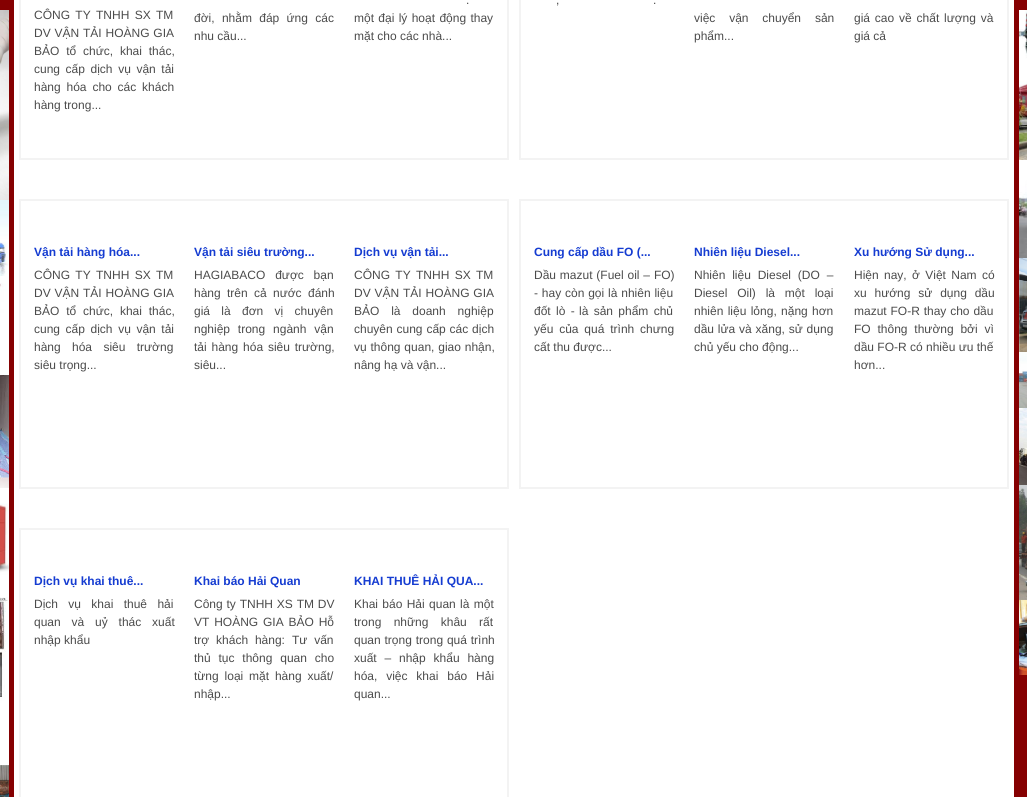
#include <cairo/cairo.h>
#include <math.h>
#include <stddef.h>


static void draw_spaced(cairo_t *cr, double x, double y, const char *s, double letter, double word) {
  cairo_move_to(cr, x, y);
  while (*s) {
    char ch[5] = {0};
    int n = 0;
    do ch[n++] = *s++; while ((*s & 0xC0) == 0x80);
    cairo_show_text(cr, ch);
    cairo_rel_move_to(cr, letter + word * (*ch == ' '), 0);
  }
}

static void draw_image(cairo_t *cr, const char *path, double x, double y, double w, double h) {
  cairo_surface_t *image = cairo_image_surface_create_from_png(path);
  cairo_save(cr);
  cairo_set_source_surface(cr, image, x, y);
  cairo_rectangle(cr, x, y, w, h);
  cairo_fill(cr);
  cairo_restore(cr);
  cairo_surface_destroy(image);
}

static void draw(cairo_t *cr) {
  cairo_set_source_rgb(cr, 133 / 255.0, 0, 1 / 255.0);
  cairo_paint(cr);
  draw_image(cr, "images/1.png", 0, 10, 9, 190);
  draw_image(cr, "images/2.png", 0, 200, 9, 76);
  draw_image(cr, "images/3.png", 0, 276, 9, 99);
  draw_image(cr, "images/4.png", 0, 375, 9, 113);
  draw_image(cr, "images/5.png", 0, 488, 9, 93);
  draw_image(cr, "images/6.png", 0, 581, 9, 184);
  draw_image(cr, "images/7.png", 0, 765, 9, 32);
  cairo_set_source_rgb(cr, 1, 1, 1);
  cairo_rectangle(cr, 14, 0, 1000, 797);
  cairo_fill(cr);
  cairo_rectangle(cr, 20, -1, 488, 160);
  cairo_set_source_rgb(cr, 243 / 255.0, 243 / 255.0, 243 / 255.0);
  cairo_stroke(cr);
  cairo_rectangle(cr, 20, 200, 488, 288);
  cairo_stroke(cr);
  cairo_rectangle(cr, 20, 529, 488, 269);
  cairo_stroke(cr);
  cairo_rectangle(cr, 520, -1, 488, 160);
  cairo_stroke(cr);
  cairo_rectangle(cr, 520, 200, 488, 288);
  cairo_stroke(cr);
  draw_image(cr, "images/8.png", 1019, 10, 8, 63);
  draw_image(cr, "images/9.png", 1019, 73, 8, 87);
  draw_image(cr, "images/10.png", 1019, 160, 8, 98);
  draw_image(cr, "images/11.png", 1019, 258, 8, 94);
  draw_image(cr, "images/12.png", 1019, 352, 8, 56);
  draw_image(cr, "images/13.png", 1019, 408, 8, 77);
  draw_image(cr, "images/14.png", 1019, 485, 8, 115);
  draw_image(cr, "images/15.png", 1019, 600, 8, 75);
  cairo_select_font_face(cr, "Liberation Sans", CAIRO_FONT_SLANT_NORMAL, CAIRO_FONT_WEIGHT_NORMAL);
  cairo_set_font_size(cr, 12);
  cairo_set_source_rgb(cr, 75 / 255.0, 75 / 255.0, 75 / 255.0);
  draw_spaced(cr, 34, 19, "CÔNG TY TNHH SX TM", 0, 2);
  draw_spaced(cr, 34, 37, "DV VẬN TẢI HOÀNG GIA", 0, 0.5);
  draw_spaced(cr, 34, 55, "BẢO tổ chức, khai thác,", 0, 3.5);
  draw_spaced(cr, 34, 73, "cung cấp dịch vụ vận tải", 0, 2.25);
  draw_spaced(cr, 34, 91, "hàng hóa cho các khách", 0, 2.5);
  cairo_move_to(cr, 34, 109);
  cairo_show_text(cr, "hàng trong...");
  draw_spaced(cr, 194, 22, "đời, nhằm đáp ứng các", 0, 4);
  cairo_move_to(cr, 194, 40);
  cairo_show_text(cr, "nhu cầu...");
  draw_spaced(cr, 466, 4, ".", 0, 8);
  draw_spaced(cr, 354, 22, "một đại lý hoạt động thay", 0, 1);
  cairo_move_to(cr, 354, 40);
  cairo_show_text(cr, "mặt cho các nhà...");
  cairo_select_font_face(cr, "Liberation Sans", CAIRO_FONT_SLANT_NORMAL, CAIRO_FONT_WEIGHT_BOLD);
  cairo_set_source_rgb(cr, 21 / 255.0, 60 / 255.0, 209 / 255.0);
  cairo_move_to(cr, 34, 256);
  cairo_show_text(cr, "Vận tải hàng hóa...");
  cairo_select_font_face(cr, "Liberation Sans", CAIRO_FONT_SLANT_NORMAL, CAIRO_FONT_WEIGHT_NORMAL);
  cairo_set_source_rgb(cr, 75 / 255.0, 75 / 255.0, 75 / 255.0);
  draw_spaced(cr, 34, 279, "CÔNG TY TNHH SX TM", 0, 2);
  draw_spaced(cr, 34, 297, "DV VẬN TẢI HOÀNG GIA", 0, 0.5);
  draw_spaced(cr, 34, 315, "BẢO tổ chức, khai thác,", 0, 3.5);
  draw_spaced(cr, 34, 333, "cung cấp dịch vụ vận tải", 0, 2.25);
  draw_spaced(cr, 34, 351, "hàng hóa siêu trường", 0, 8);
  cairo_move_to(cr, 34, 369);
  cairo_show_text(cr, "siêu trọng...");
  cairo_select_font_face(cr, "Liberation Sans", CAIRO_FONT_SLANT_NORMAL, CAIRO_FONT_WEIGHT_BOLD);
  cairo_set_source_rgb(cr, 21 / 255.0, 60 / 255.0, 209 / 255.0);
  cairo_move_to(cr, 194, 256);
  cairo_show_text(cr, "Vận tải siêu trường...");
  cairo_select_font_face(cr, "Liberation Sans", CAIRO_FONT_SLANT_NORMAL, CAIRO_FONT_WEIGHT_NORMAL);
  cairo_set_source_rgb(cr, 75 / 255.0, 75 / 255.0, 75 / 255.0);
  draw_spaced(cr, 194, 279, "HAGIABACO được bạn", 0, 6.5);
  draw_spaced(cr, 194, 297, "hàng trên cả nước đánh", 0, 3);
  draw_spaced(cr, 194, 315, "giá là đơn vị chuyên", 0, 8);
  draw_spaced(cr, 194, 333, "nghiệp trong ngành vận", 0, 4.5);
  draw_spaced(cr, 194, 351, "tải hàng hóa siêu trường,", 0, 1.5);
  cairo_move_to(cr, 194, 369);
  cairo_show_text(cr, "siêu...");
  cairo_select_font_face(cr, "Liberation Sans", CAIRO_FONT_SLANT_NORMAL, CAIRO_FONT_WEIGHT_BOLD);
  cairo_set_source_rgb(cr, 21 / 255.0, 60 / 255.0, 209 / 255.0);
  cairo_move_to(cr, 354, 256);
  cairo_show_text(cr, "Dịch vụ vận tải...");
  cairo_select_font_face(cr, "Liberation Sans", CAIRO_FONT_SLANT_NORMAL, CAIRO_FONT_WEIGHT_NORMAL);
  cairo_set_source_rgb(cr, 75 / 255.0, 75 / 255.0, 75 / 255.0);
  draw_spaced(cr, 354, 279, "CÔNG TY TNHH SX TM", 0, 2);
  draw_spaced(cr, 354, 297, "DV VẬN TẢI HOÀNG GIA", 0, 0.5);
  draw_spaced(cr, 354, 315, "BẢO là doanh nghiệp", 0, 8.5);
  draw_spaced(cr, 354, 333, "chuyên cung cấp các dịch", 0, 0.5);
  draw_spaced(cr, 354, 351, "vụ thông quan, giao nhận,", 0, 0.5);
  cairo_move_to(cr, 354, 369);
  cairo_show_text(cr, "nâng hạ và vận...");
  cairo_select_font_face(cr, "Liberation Sans", CAIRO_FONT_SLANT_NORMAL, CAIRO_FONT_WEIGHT_BOLD);
  cairo_set_source_rgb(cr, 21 / 255.0, 60 / 255.0, 209 / 255.0);
  cairo_move_to(cr, 34, 585);
  cairo_show_text(cr, "Dịch vụ khai thuê...");
  cairo_select_font_face(cr, "Liberation Sans", CAIRO_FONT_SLANT_NORMAL, CAIRO_FONT_WEIGHT_NORMAL);
  cairo_set_source_rgb(cr, 75 / 255.0, 75 / 255.0, 75 / 255.0);
  draw_spaced(cr, 34, 608, "Dịch vụ khai thuê hải", 0, 7);
  draw_spaced(cr, 34, 626, "quan và uỷ thác xuất", 0, 7.5);
  cairo_move_to(cr, 34, 644);
  cairo_show_text(cr, "nhập khẩu");
  cairo_select_font_face(cr, "Liberation Sans", CAIRO_FONT_SLANT_NORMAL, CAIRO_FONT_WEIGHT_BOLD);
  cairo_set_source_rgb(cr, 21 / 255.0, 60 / 255.0, 209 / 255.0);
  cairo_move_to(cr, 194, 585);
  cairo_show_text(cr, "Khai báo Hải Quan");
  cairo_select_font_face(cr, "Liberation Sans", CAIRO_FONT_SLANT_NORMAL, CAIRO_FONT_WEIGHT_NORMAL);
  cairo_set_source_rgb(cr, 75 / 255.0, 75 / 255.0, 75 / 255.0);
  draw_spaced(cr, 194, 608, "Công ty TNHH XS TM DV", 0, 0.5);
  draw_spaced(cr, 194, 626, "VT HOÀNG GIA BẢO Hỗ", 0, 1.5);
  draw_spaced(cr, 194, 644, "trợ khách hàng:", 0, 3.5);
  draw_spaced(cr, 292, 644, "Tư vấn", 0, 3.5);
  draw_spaced(cr, 194, 662, "thủ tục thông quan cho", 0, 4.5);
  draw_spaced(cr, 194, 680, "từng loại mặt hàng xuất/", 0, 2.5);
  cairo_move_to(cr, 194, 698);
  cairo_show_text(cr, "nhập...");
  cairo_select_font_face(cr, "Liberation Sans", CAIRO_FONT_SLANT_NORMAL, CAIRO_FONT_WEIGHT_BOLD);
  cairo_set_source_rgb(cr, 21 / 255.0, 60 / 255.0, 209 / 255.0);
  cairo_move_to(cr, 354, 585);
  cairo_show_text(cr, "KHAI THUÊ HẢI QUA...");
  cairo_select_font_face(cr, "Liberation Sans", CAIRO_FONT_SLANT_NORMAL, CAIRO_FONT_WEIGHT_NORMAL);
  cairo_set_source_rgb(cr, 75 / 255.0, 75 / 255.0, 75 / 255.0);
  draw_spaced(cr, 354, 608, "Khai báo Hải quan là một", 0, 1);
  draw_spaced(cr, 354, 626, "trong những khâu rất", 0, 9);
  draw_spaced(cr, 354, 644, "quan trọng trong quá trình", 0, 0.5);
  draw_spaced(cr, 354, 662, "xuất – nhập khẩu hàng", 0, 4.5);
  draw_spaced(cr, 354, 680, "hóa, việc khai báo Hải", 0, 5.5);
  cairo_move_to(cr, 354, 698);
  cairo_show_text(cr, "quan...");
  cairo_move_to(cr, 556, 4);
  cairo_show_text(cr, ",");
  cairo_move_to(cr, 653, 4);
  cairo_show_text(cr, ".");
  draw_spaced(cr, 694, 22, "việc vận chuyển sản", 0, 10.5);
  cairo_move_to(cr, 694, 40);
  cairo_show_text(cr, "phẩm...");
  draw_spaced(cr, 854, 22, "giá cao về chất lượng và", 0, 1.5);
  cairo_move_to(cr, 854, 40);
  cairo_show_text(cr, "giá cả");
  cairo_select_font_face(cr, "Liberation Sans", CAIRO_FONT_SLANT_NORMAL, CAIRO_FONT_WEIGHT_BOLD);
  cairo_set_source_rgb(cr, 21 / 255.0, 60 / 255.0, 209 / 255.0);
  cairo_move_to(cr, 534, 256);
  cairo_show_text(cr, "Cung cấp dầu FO (...");
  cairo_select_font_face(cr, "Liberation Sans", CAIRO_FONT_SLANT_NORMAL, CAIRO_FONT_WEIGHT_NORMAL);
  cairo_set_source_rgb(cr, 75 / 255.0, 75 / 255.0, 75 / 255.0);
  draw_spaced(cr, 534, 279, "Dầu mazut (Fuel oil – FO)", 0, 0.5);
  draw_spaced(cr, 534, 297, "- hay còn gọi là nhiên liệu", 0, 0.5);
  draw_spaced(cr, 534, 315, "đốt lò -", 0, 2);
  draw_spaced(cr, 579, 315, "là sản phẩm chủ", 0, 2);
  draw_spaced(cr, 534, 333, "yếu của quá trình chưng", 0, 2.5);
  cairo_move_to(cr, 534, 351);
  cairo_show_text(cr, "cất thu được...");
  cairo_select_font_face(cr, "Liberation Sans", CAIRO_FONT_SLANT_NORMAL, CAIRO_FONT_WEIGHT_BOLD);
  cairo_set_source_rgb(cr, 21 / 255.0, 60 / 255.0, 209 / 255.0);
  cairo_move_to(cr, 694, 256);
  cairo_show_text(cr, "Nhiên liệu Diesel...");
  cairo_select_font_face(cr, "Liberation Sans", CAIRO_FONT_SLANT_NORMAL, CAIRO_FONT_WEIGHT_NORMAL);
  cairo_set_source_rgb(cr, 75 / 255.0, 75 / 255.0, 75 / 255.0);
  draw_spaced(cr, 694, 279, "Nhiên liệu Diesel (DO –", 0, 3.5);
  draw_spaced(cr, 694, 297, "Diesel Oil) là một loại", 0, 6.5);
  draw_spaced(cr, 694, 315, "nhiên liệu lỏng, nặng hơn", 0, 1);
  draw_spaced(cr, 694, 333, "dầu lửa và xăng, sử dụng", 0, 0.5);
  cairo_move_to(cr, 694, 351);
  cairo_show_text(cr, "chủ yếu cho động...");
  cairo_select_font_face(cr, "Liberation Sans", CAIRO_FONT_SLANT_NORMAL, CAIRO_FONT_WEIGHT_BOLD);
  cairo_set_source_rgb(cr, 21 / 255.0, 60 / 255.0, 209 / 255.0);
  cairo_move_to(cr, 854, 256);
  cairo_show_text(cr, "Xu hướng Sử dụng...");
  cairo_select_font_face(cr, "Liberation Sans", CAIRO_FONT_SLANT_NORMAL, CAIRO_FONT_WEIGHT_NORMAL);
  cairo_set_source_rgb(cr, 75 / 255.0, 75 / 255.0, 75 / 255.0);
  draw_spaced(cr, 854, 279, "Hiện nay, ở Việt Nam có", 0, 2);
  draw_spaced(cr, 854, 297, "xu hướng sử dụng dầu", 0, 4.5);
  draw_spaced(cr, 854, 315, "mazut FO-R thay cho dầu", 0, 0.5);
  draw_spaced(cr, 854, 333, "FO thông thường bởi vì", 0, 3.5);
  cairo_move_to(cr, 854, 351);
  cairo_show_text(cr, "dầu FO-R có nhiều ưu thế");
  cairo_move_to(cr, 854, 369);
  cairo_show_text(cr, "hơn...");
}

int main(void) {
  cairo_surface_t *surface = cairo_image_surface_create(CAIRO_FORMAT_RGB24, 1027, 797);
  cairo_t *cr = cairo_create(surface);
  cairo_font_options_t *options = cairo_font_options_create();
  cairo_font_options_set_hint_metrics(options, CAIRO_HINT_METRICS_OFF);
  cairo_font_options_set_hint_style(options, CAIRO_HINT_STYLE_NONE);
  cairo_set_font_options(cr, options);
  cairo_set_miter_limit(cr, 4);
  draw(cr);
  cairo_surface_write_to_png(surface, "out.png");
  cairo_font_options_destroy(options);
  cairo_destroy(cr);
  cairo_surface_destroy(surface);
  return 0;
}
